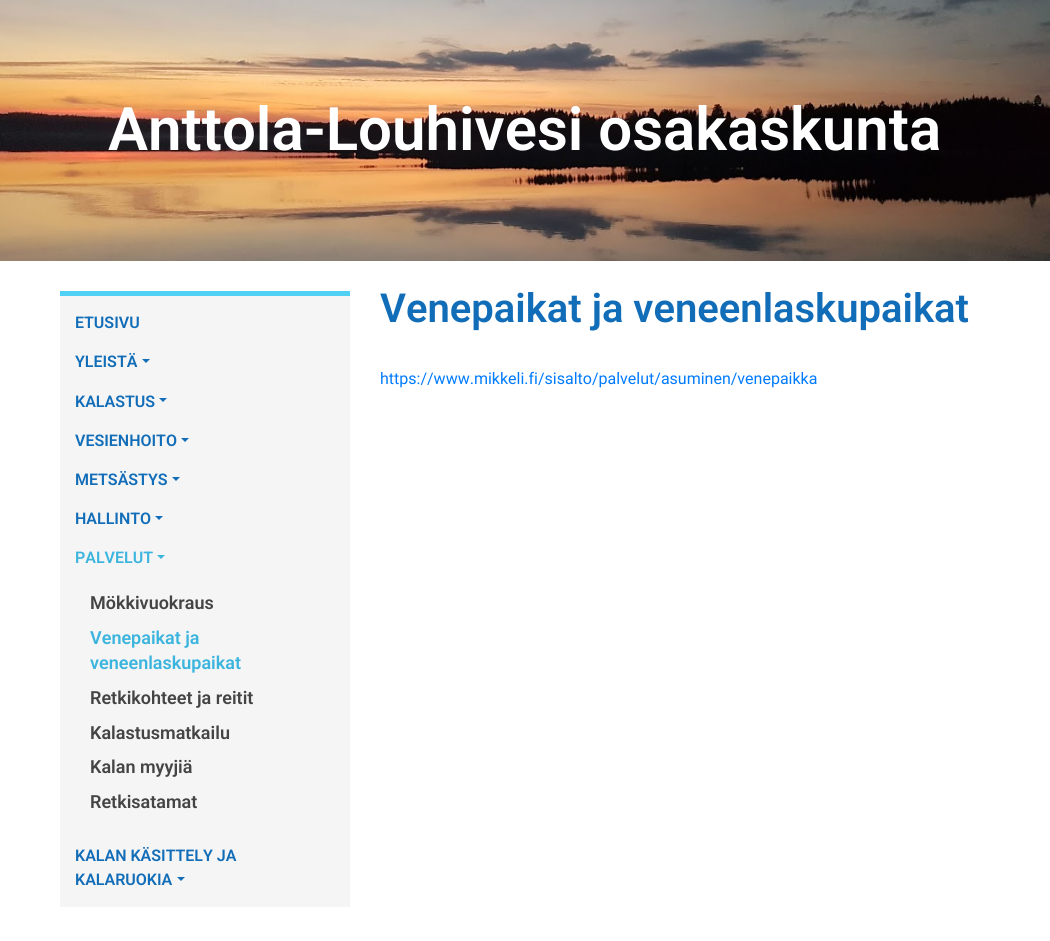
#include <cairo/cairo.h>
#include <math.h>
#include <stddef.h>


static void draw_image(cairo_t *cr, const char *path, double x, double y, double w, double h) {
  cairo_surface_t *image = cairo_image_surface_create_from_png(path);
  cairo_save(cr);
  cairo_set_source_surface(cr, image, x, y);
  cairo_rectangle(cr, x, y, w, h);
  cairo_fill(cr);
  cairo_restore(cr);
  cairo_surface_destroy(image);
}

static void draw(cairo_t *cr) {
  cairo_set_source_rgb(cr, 1, 1, 1);
  cairo_paint(cr);
  draw_image(cr, "images/1.png", 0, 0, 1050, 261);
  cairo_set_source_rgb(cr, 245 / 255.0, 245 / 255.0, 245 / 255.0);
  cairo_rectangle(cr, 60, 296, 290, 611);
  cairo_fill(cr);
  cairo_set_source_rgb(cr, 79 / 255.0, 208 / 255.0, 244 / 255.0);
  cairo_rectangle(cr, 60, 291, 290, 5);
  cairo_fill(cr);
  cairo_set_source_rgb(cr, 18 / 255.0, 109 / 255.0, 184 / 255.0);
  cairo_new_path(cr);
  cairo_move_to(cr, 142, 359);
  cairo_line_to(cr, 150, 359);
  cairo_line_to(cr, 146, 363);
  cairo_close_path(cr);
  cairo_fill(cr);
  cairo_new_path(cr);
  cairo_move_to(cr, 159, 398);
  cairo_line_to(cr, 167, 398);
  cairo_line_to(cr, 163, 402);
  cairo_close_path(cr);
  cairo_fill(cr);
  cairo_new_path(cr);
  cairo_move_to(cr, 181, 438);
  cairo_line_to(cr, 189, 438);
  cairo_line_to(cr, 185, 442);
  cairo_close_path(cr);
  cairo_fill(cr);
  cairo_new_path(cr);
  cairo_move_to(cr, 172, 477);
  cairo_line_to(cr, 180, 477);
  cairo_line_to(cr, 176, 481);
  cairo_close_path(cr);
  cairo_fill(cr);
  cairo_new_path(cr);
  cairo_move_to(cr, 155, 516);
  cairo_line_to(cr, 163, 516);
  cairo_line_to(cr, 159, 520);
  cairo_close_path(cr);
  cairo_fill(cr);
  cairo_set_source_rgb(cr, 59 / 255.0, 180 / 255.0, 222 / 255.0);
  cairo_new_path(cr);
  cairo_move_to(cr, 157, 555);
  cairo_line_to(cr, 165, 555);
  cairo_line_to(cr, 161, 559);
  cairo_close_path(cr);
  cairo_fill(cr);
  cairo_set_source_rgb(cr, 18 / 255.0, 109 / 255.0, 184 / 255.0);
  cairo_new_path(cr);
  cairo_move_to(cr, 177, 877);
  cairo_line_to(cr, 185, 877);
  cairo_line_to(cr, 181, 881);
  cairo_close_path(cr);
  cairo_fill(cr);
  cairo_select_font_face(cr, "Roboto SemiBold", CAIRO_FONT_SLANT_NORMAL, CAIRO_FONT_WEIGHT_NORMAL);
  cairo_set_font_size(cr, 60);
  cairo_set_source_rgb(cr, 1, 1, 1);
  cairo_move_to(cr, 108, 150);
  cairo_show_text(cr, "Anttola-Louhivesi osakaskunta");
  cairo_set_font_size(cr, 16);
  cairo_set_source_rgb(cr, 18 / 255.0, 109 / 255.0, 184 / 255.0);
  cairo_move_to(cr, 75, 328);
  cairo_show_text(cr, "ETUSIVU");
  cairo_move_to(cr, 75, 367);
  cairo_show_text(cr, "YLEISTÄ");
  cairo_move_to(cr, 75, 407);
  cairo_show_text(cr, "KALASTUS");
  cairo_move_to(cr, 75, 446);
  cairo_show_text(cr, "VESIENHOITO");
  cairo_move_to(cr, 75, 485);
  cairo_show_text(cr, "METSÄSTYS");
  cairo_move_to(cr, 75, 524);
  cairo_show_text(cr, "HALLINTO");
  cairo_set_source_rgb(cr, 59 / 255.0, 180 / 255.0, 222 / 255.0);
  cairo_move_to(cr, 75, 563);
  cairo_show_text(cr, "PALVELUT");
  cairo_set_font_size(cr, 18);
  cairo_set_source_rgb(cr, 68 / 255.0, 68 / 255.0, 68 / 255.0);
  cairo_move_to(cr, 90, 609);
  cairo_show_text(cr, "Mökkivuokraus");
  cairo_set_source_rgb(cr, 59 / 255.0, 180 / 255.0, 222 / 255.0);
  cairo_move_to(cr, 90, 644);
  cairo_show_text(cr, "Venepaikat ja");
  cairo_move_to(cr, 90, 669);
  cairo_show_text(cr, "veneenlaskupaikat");
  cairo_set_source_rgb(cr, 68 / 255.0, 68 / 255.0, 68 / 255.0);
  cairo_move_to(cr, 90, 704);
  cairo_show_text(cr, "Retkikohteet ja reitit");
  cairo_move_to(cr, 90, 739);
  cairo_show_text(cr, "Kalastusmatkailu");
  cairo_move_to(cr, 90, 773);
  cairo_show_text(cr, "Kalan myyjiä");
  cairo_move_to(cr, 90, 808);
  cairo_show_text(cr, "Retkisatamat");
  cairo_set_font_size(cr, 16);
  cairo_set_source_rgb(cr, 18 / 255.0, 109 / 255.0, 184 / 255.0);
  cairo_move_to(cr, 75, 861);
  cairo_show_text(cr, "KALAN KÄSITTELY JA");
  cairo_move_to(cr, 75, 885);
  cairo_show_text(cr, "KALARUOKIA");
  cairo_set_font_size(cr, 40);
  cairo_move_to(cr, 380, 322);
  cairo_show_text(cr, "Venepaikat ja veneenlaskupaikat");
  cairo_select_font_face(cr, "Roboto", CAIRO_FONT_SLANT_NORMAL, CAIRO_FONT_WEIGHT_NORMAL);
  cairo_set_font_size(cr, 16);
  cairo_set_source_rgb(cr, 0, 123 / 255.0, 1);
  cairo_move_to(cr, 380, 384);
  cairo_show_text(cr, "https://www.mikkeli.fi/sisalto/palvelut/asuminen/venepaikka");
}

int main(void) {
  cairo_surface_t *surface = cairo_image_surface_create(CAIRO_FORMAT_RGB24, 1050, 941);
  cairo_t *cr = cairo_create(surface);
  cairo_font_options_t *options = cairo_font_options_create();
  cairo_font_options_set_hint_metrics(options, CAIRO_HINT_METRICS_OFF);
  cairo_font_options_set_hint_style(options, CAIRO_HINT_STYLE_NONE);
  cairo_set_font_options(cr, options);
  cairo_set_miter_limit(cr, 4);
  draw(cr);
  cairo_surface_write_to_png(surface, "out.png");
  cairo_font_options_destroy(options);
  cairo_destroy(cr);
  cairo_surface_destroy(surface);
  return 0;
}
